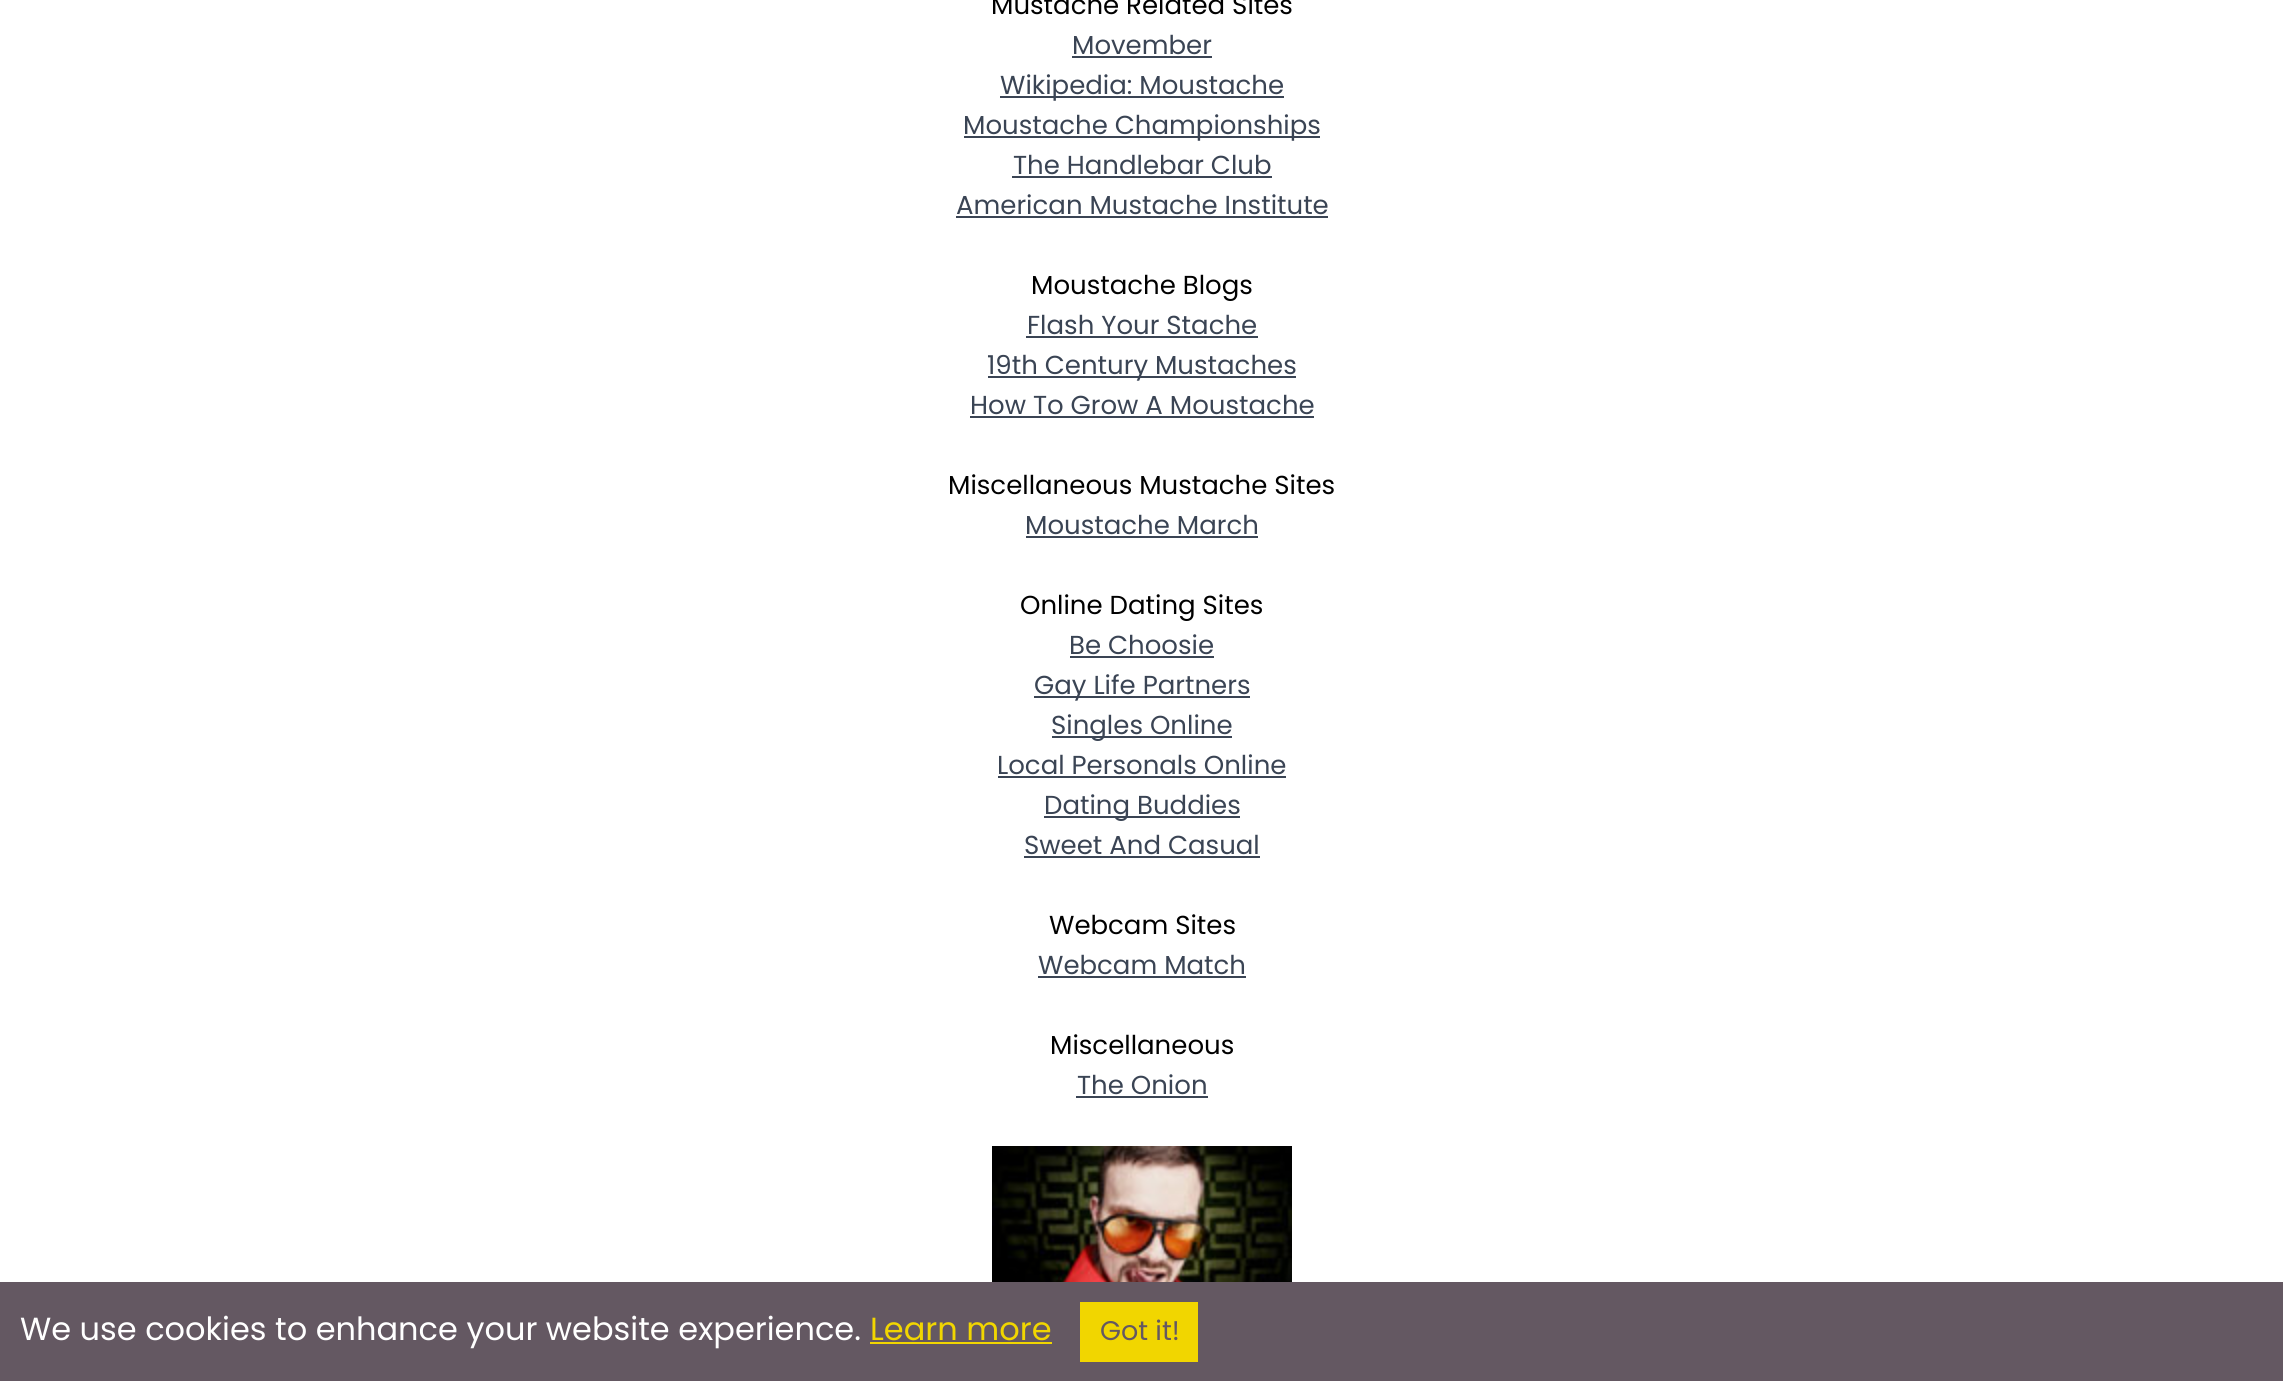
#include <cairo/cairo.h>
#include <math.h>
#include <stddef.h>


static void draw_image(cairo_t *cr, const char *path, double x, double y, double w, double h) {
  cairo_surface_t *image = cairo_image_surface_create_from_png(path);
  cairo_save(cr);
  cairo_set_source_surface(cr, image, x, y);
  cairo_rectangle(cr, x, y, w, h);
  cairo_fill(cr);
  cairo_restore(cr);
  cairo_surface_destroy(image);
}

static void draw(cairo_t *cr) {
  cairo_set_source_rgb(cr, 1, 1, 1);
  cairo_paint(cr);
  cairo_set_source_rgb(cr, 58 / 255.0, 68 / 255.0, 84 / 255.0);
  cairo_rectangle(cr, 1072, 56, 140, 2);
  cairo_fill(cr);
  cairo_rectangle(cr, 1000, 96, 284, 2);
  cairo_fill(cr);
  cairo_rectangle(cr, 964, 136, 356, 2);
  cairo_fill(cr);
  cairo_rectangle(cr, 1012, 176, 260, 2);
  cairo_fill(cr);
  cairo_rectangle(cr, 956, 216, 372, 2);
  cairo_fill(cr);
  cairo_rectangle(cr, 1026, 336, 232, 2);
  cairo_fill(cr);
  cairo_rectangle(cr, 988, 376, 308, 2);
  cairo_fill(cr);
  cairo_rectangle(cr, 970, 416, 344, 2);
  cairo_fill(cr);
  cairo_rectangle(cr, 1026, 536, 232, 2);
  cairo_fill(cr);
  cairo_rectangle(cr, 1070, 656, 144, 2);
  cairo_fill(cr);
  cairo_rectangle(cr, 1034, 696, 216, 2);
  cairo_fill(cr);
  cairo_rectangle(cr, 1052, 736, 180, 2);
  cairo_fill(cr);
  cairo_rectangle(cr, 998, 776, 288, 2);
  cairo_fill(cr);
  cairo_rectangle(cr, 1044, 816, 196, 2);
  cairo_fill(cr);
  cairo_rectangle(cr, 1024, 856, 236, 2);
  cairo_fill(cr);
  cairo_rectangle(cr, 1038, 976, 208, 2);
  cairo_fill(cr);
  cairo_rectangle(cr, 1076, 1096, 132, 2);
  cairo_fill(cr);
  draw_image(cr, "images/1.png", 992, 1146, 300, 136);
  cairo_set_source_rgb(cr, 100 / 255.0, 88 / 255.0, 98 / 255.0);
  cairo_rectangle(cr, 0, 1282, 2283, 99);
  cairo_fill(cr);
  cairo_set_source_rgb(cr, 241 / 255.0, 214 / 255.0, 0);
  cairo_rectangle(cr, 870, 1342, 182, 2);
  cairo_fill(cr);
  cairo_rectangle(cr, 1080, 1302, 118, 60);
  cairo_fill(cr);
  cairo_select_font_face(cr, "Poppins", CAIRO_FONT_SLANT_NORMAL, CAIRO_FONT_WEIGHT_NORMAL);
  cairo_set_font_size(cr, 26);
  cairo_set_source_rgb(cr, 0, 0, 0);
  cairo_move_to(cr, 991, 14);
  cairo_show_text(cr, "Mustache Related Sites");
  cairo_set_source_rgb(cr, 58 / 255.0, 68 / 255.0, 84 / 255.0);
  cairo_move_to(cr, 1072, 54);
  cairo_show_text(cr, "Movember");
  cairo_move_to(cr, 1000, 94);
  cairo_show_text(cr, "Wikipedia: Moustache");
  cairo_move_to(cr, 963, 134);
  cairo_show_text(cr, "Moustache Championships");
  cairo_move_to(cr, 1013, 174);
  cairo_show_text(cr, "The Handlebar Club");
  cairo_move_to(cr, 956, 214);
  cairo_show_text(cr, "American Mustache Institute");
  cairo_set_source_rgb(cr, 0, 0, 0);
  cairo_move_to(cr, 1031, 294);
  cairo_show_text(cr, "Moustache Blogs");
  cairo_set_source_rgb(cr, 58 / 255.0, 68 / 255.0, 84 / 255.0);
  cairo_move_to(cr, 1027, 334);
  cairo_show_text(cr, "Flash Your Stache");
  cairo_move_to(cr, 987, 374);
  cairo_show_text(cr, "19th Century Mustaches");
  cairo_move_to(cr, 970, 414);
  cairo_show_text(cr, "How To Grow A Moustache");
  cairo_set_source_rgb(cr, 0, 0, 0);
  cairo_move_to(cr, 948, 494);
  cairo_show_text(cr, "Miscellaneous Mustache Sites");
  cairo_set_source_rgb(cr, 58 / 255.0, 68 / 255.0, 84 / 255.0);
  cairo_move_to(cr, 1025, 534);
  cairo_show_text(cr, "Moustache March");
  cairo_set_source_rgb(cr, 0, 0, 0);
  cairo_move_to(cr, 1020, 614);
  cairo_show_text(cr, "Online Dating Sites");
  cairo_set_source_rgb(cr, 58 / 255.0, 68 / 255.0, 84 / 255.0);
  cairo_move_to(cr, 1069, 654);
  cairo_show_text(cr, "Be Choosie");
  cairo_move_to(cr, 1034, 694);
  cairo_show_text(cr, "Gay Life Partners");
  cairo_move_to(cr, 1051, 734);
  cairo_show_text(cr, "Singles Online");
  cairo_move_to(cr, 997, 774);
  cairo_show_text(cr, "Local Personals Online");
  cairo_move_to(cr, 1044, 814);
  cairo_show_text(cr, "Dating Buddies");
  cairo_move_to(cr, 1024, 854);
  cairo_show_text(cr, "Sweet And Casual");
  cairo_set_source_rgb(cr, 0, 0, 0);
  cairo_move_to(cr, 1049, 934);
  cairo_show_text(cr, "Webcam Sites");
  cairo_set_source_rgb(cr, 58 / 255.0, 68 / 255.0, 84 / 255.0);
  cairo_move_to(cr, 1038, 974);
  cairo_show_text(cr, "Webcam Match");
  cairo_set_source_rgb(cr, 0, 0, 0);
  cairo_move_to(cr, 1050, 1054);
  cairo_show_text(cr, "Miscellaneous");
  cairo_set_source_rgb(cr, 58 / 255.0, 68 / 255.0, 84 / 255.0);
  cairo_move_to(cr, 1077, 1094);
  cairo_show_text(cr, "The Onion");
  cairo_set_font_size(cr, 32);
  cairo_set_source_rgb(cr, 1, 1, 1);
  cairo_move_to(cr, 20, 1340);
  cairo_show_text(cr, "We use cookies to enhance your website experience.");
  cairo_set_source_rgb(cr, 241 / 255.0, 214 / 255.0, 0);
  cairo_move_to(cr, 870, 1340);
  cairo_show_text(cr, "Learn more");
  cairo_set_font_size(cr, 27);
  cairo_set_source_rgb(cr, 100 / 255.0, 88 / 255.0, 98 / 255.0);
  cairo_move_to(cr, 1100, 1340);
  cairo_show_text(cr, "Got it!");
}

int main(void) {
  cairo_surface_t *surface = cairo_image_surface_create(CAIRO_FORMAT_RGB24, 2283, 1381);
  cairo_t *cr = cairo_create(surface);
  cairo_font_options_t *options = cairo_font_options_create();
  cairo_font_options_set_hint_metrics(options, CAIRO_HINT_METRICS_OFF);
  cairo_font_options_set_hint_style(options, CAIRO_HINT_STYLE_NONE);
  cairo_set_font_options(cr, options);
  cairo_set_miter_limit(cr, 4);
  draw(cr);
  cairo_surface_write_to_png(surface, "out.png");
  cairo_font_options_destroy(options);
  cairo_destroy(cr);
  cairo_surface_destroy(surface);
  return 0;
}
